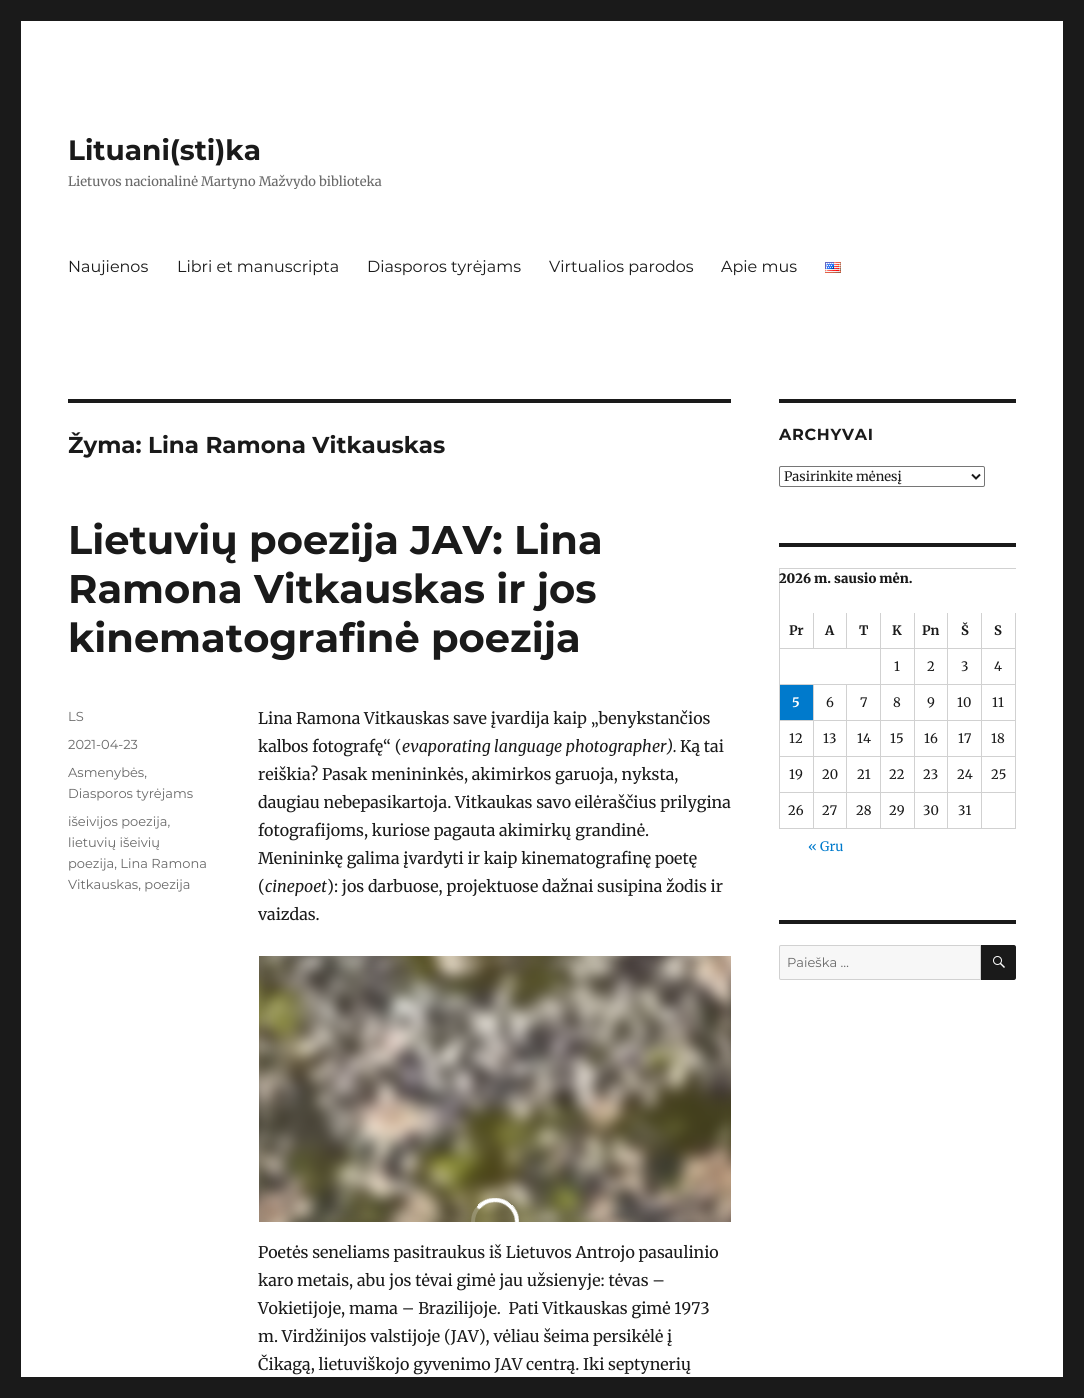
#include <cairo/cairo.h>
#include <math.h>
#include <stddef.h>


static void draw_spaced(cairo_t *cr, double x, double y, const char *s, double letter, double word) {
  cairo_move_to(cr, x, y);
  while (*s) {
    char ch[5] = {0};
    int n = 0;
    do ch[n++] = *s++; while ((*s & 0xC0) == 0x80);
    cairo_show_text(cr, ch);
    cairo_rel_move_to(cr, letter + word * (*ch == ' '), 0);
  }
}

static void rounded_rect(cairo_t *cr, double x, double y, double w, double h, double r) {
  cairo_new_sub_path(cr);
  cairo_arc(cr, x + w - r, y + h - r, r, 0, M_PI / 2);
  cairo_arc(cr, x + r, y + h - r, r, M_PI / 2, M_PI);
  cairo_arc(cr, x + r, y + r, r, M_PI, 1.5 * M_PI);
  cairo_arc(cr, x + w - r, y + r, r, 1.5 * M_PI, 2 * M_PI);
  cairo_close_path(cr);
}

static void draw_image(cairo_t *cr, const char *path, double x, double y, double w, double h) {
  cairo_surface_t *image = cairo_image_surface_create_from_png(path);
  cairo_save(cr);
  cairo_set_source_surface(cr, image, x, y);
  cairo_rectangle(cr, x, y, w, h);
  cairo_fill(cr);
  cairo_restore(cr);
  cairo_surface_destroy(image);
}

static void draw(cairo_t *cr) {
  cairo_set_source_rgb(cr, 26 / 255.0, 26 / 255.0, 26 / 255.0);
  cairo_paint(cr);
  cairo_set_source_rgb(cr, 1, 1, 1);
  cairo_rectangle(cr, 21, 21, 1042, 1356);
  cairo_fill(cr);
  draw_image(cr, "images/1.png", 825, 262, 16, 11);
  cairo_set_source_rgb(cr, 26 / 255.0, 26 / 255.0, 26 / 255.0);
  cairo_rectangle(cr, 68, 399, 663, 4);
  cairo_fill(cr);
  draw_image(cr, "images/2.png", 259, 956, 472, 266);
  cairo_rectangle(cr, 779, 399, 237, 4);
  cairo_fill(cr);
  rounded_rect(cr, 779.5, 466.5, 205, 20, 1.5);
  cairo_set_source_rgb(cr, 118 / 255.0, 118 / 255.0, 118 / 255.0);
  cairo_set_line_width(cr, 1);
  cairo_stroke(cr);
  cairo_new_path(cr);
  cairo_move_to(cr, 972, 474.5);
  cairo_line_to(cr, 976, 478.5);
  cairo_line_to(cr, 980, 474.5);
  cairo_set_source_rgb(cr, 26 / 255.0, 26 / 255.0, 26 / 255.0);
  cairo_set_line_width(cr, 2);
  cairo_stroke(cr);
  cairo_rectangle(cr, 779, 543, 237, 4);
  cairo_fill(cr);
  cairo_set_source_rgb(cr, 209 / 255.0, 209 / 255.0, 209 / 255.0);
  cairo_rectangle(cr, 779, 568, 237, 1);
  cairo_fill(cr);
  cairo_rectangle(cr, 779, 568, 1, 261);
  cairo_fill(cr);
  cairo_rectangle(cr, 813, 613, 1, 36);
  cairo_fill(cr);
  cairo_rectangle(cr, 780, 648, 34, 1);
  cairo_fill(cr);
  cairo_rectangle(cr, 846, 613, 1, 36);
  cairo_fill(cr);
  cairo_rectangle(cr, 814, 648, 33, 1);
  cairo_fill(cr);
  cairo_rectangle(cr, 880, 613, 1, 216);
  cairo_fill(cr);
  cairo_rectangle(cr, 847, 648, 34, 1);
  cairo_fill(cr);
  cairo_rectangle(cr, 914, 613, 1, 216);
  cairo_fill(cr);
  cairo_rectangle(cr, 881, 648, 34, 1);
  cairo_fill(cr);
  cairo_rectangle(cr, 947, 613, 1, 216);
  cairo_fill(cr);
  cairo_rectangle(cr, 915, 648, 33, 1);
  cairo_fill(cr);
  cairo_rectangle(cr, 981, 613, 1, 216);
  cairo_fill(cr);
  cairo_rectangle(cr, 948, 648, 34, 1);
  cairo_fill(cr);
  cairo_rectangle(cr, 1015, 613, 1, 216);
  cairo_fill(cr);
  cairo_rectangle(cr, 982, 648, 34, 1);
  cairo_fill(cr);
  cairo_rectangle(cr, 780, 684, 236, 1);
  cairo_fill(cr);
  cairo_rectangle(cr, 813, 685, 1, 144);
  cairo_fill(cr);
  cairo_rectangle(cr, 780, 720, 34, 1);
  cairo_fill(cr);
  cairo_set_source_rgb(cr, 0, 122 / 255.0, 204 / 255.0);
  cairo_rectangle(cr, 780, 685, 33, 35);
  cairo_fill(cr);
  cairo_set_source_rgb(cr, 209 / 255.0, 209 / 255.0, 209 / 255.0);
  cairo_rectangle(cr, 846, 685, 1, 144);
  cairo_fill(cr);
  cairo_rectangle(cr, 814, 720, 202, 1);
  cairo_fill(cr);
  cairo_rectangle(cr, 780, 756, 236, 1);
  cairo_fill(cr);
  cairo_rectangle(cr, 780, 792, 236, 1);
  cairo_fill(cr);
  cairo_rectangle(cr, 780, 828, 236, 1);
  cairo_fill(cr);
  cairo_set_source_rgb(cr, 26 / 255.0, 26 / 255.0, 26 / 255.0);
  cairo_rectangle(cr, 779, 920, 237, 4);
  cairo_fill(cr);
  cairo_set_source_rgb(cr, 247 / 255.0, 247 / 255.0, 247 / 255.0);
  cairo_new_path(cr);
  cairo_move_to(cr, 781, 945.5);
  cairo_line_to(cr, 980.5, 945.5);
  cairo_line_to(cr, 980.5, 979.5);
  cairo_line_to(cr, 781, 979.5);
  cairo_curve_to(cr, 780, 979.5, 779.5, 979, 779.5, 978);
  cairo_line_to(cr, 779.5, 947);
  cairo_curve_to(cr, 779.5, 946, 780, 945.5, 781, 945.5);
  cairo_close_path(cr);
  cairo_fill_preserve(cr);
  cairo_set_source_rgb(cr, 209 / 255.0, 209 / 255.0, 209 / 255.0);
  cairo_set_line_width(cr, 1);
  cairo_stroke(cr);
  cairo_set_source_rgb(cr, 26 / 255.0, 26 / 255.0, 26 / 255.0);
  cairo_new_path(cr);
  cairo_move_to(cr, 981, 945);
  cairo_line_to(cr, 1014, 945);
  cairo_curve_to(cr, 1015, 945, 1016, 946, 1016, 947);
  cairo_line_to(cr, 1016, 978);
  cairo_curve_to(cr, 1016, 979, 1015, 980, 1014, 980);
  cairo_line_to(cr, 981, 980);
  cairo_close_path(cr);
  cairo_fill(cr);
  draw_image(cr, "images/3.png", 993, 956, 12, 12);
  cairo_select_font_face(cr, "Montserrat", CAIRO_FONT_SLANT_NORMAL, CAIRO_FONT_WEIGHT_BOLD);
  cairo_set_font_size(cr, 28);
  cairo_move_to(cr, 68, 160);
  cairo_show_text(cr, "Lituani(sti)ka");
  cairo_save(cr);
  cairo_rectangle(cr, 68, 133, 314, 56);
  cairo_clip(cr);
  cairo_select_font_face(cr, "Merriweather", CAIRO_FONT_SLANT_NORMAL, CAIRO_FONT_WEIGHT_NORMAL);
  cairo_set_font_size(cr, 13);
  cairo_set_source_rgb(cr, 104 / 255.0, 104 / 255.0, 104 / 255.0);
  cairo_move_to(cr, 68, 186);
  cairo_show_text(cr, "Lietuvos nacionalinė Martyno Mažvydo biblioteka");
  cairo_restore(cr);
  cairo_select_font_face(cr, "Montserrat", CAIRO_FONT_SLANT_NORMAL, CAIRO_FONT_WEIGHT_NORMAL);
  cairo_set_font_size(cr, 16);
  cairo_move_to(cr, 68, 272);
  cairo_show_text(cr, "Naujienos");
  cairo_move_to(cr, 177, 272);
  cairo_show_text(cr, "Libri et manuscripta");
  cairo_move_to(cr, 367, 272);
  cairo_show_text(cr, "Diasporos tyrėjams");
  cairo_move_to(cr, 549, 272);
  cairo_show_text(cr, "Virtualios parodos");
  cairo_move_to(cr, 721, 272);
  cairo_show_text(cr, "Apie mus");
  cairo_select_font_face(cr, "Montserrat", CAIRO_FONT_SLANT_NORMAL, CAIRO_FONT_WEIGHT_BOLD);
  cairo_set_font_size(cr, 23);
  cairo_move_to(cr, 68, 453);
  cairo_show_text(cr, "Žyma: Lina Ramona Vitkauskas");
  cairo_set_font_size(cr, 40);
  cairo_move_to(cr, 68, 554);
  cairo_show_text(cr, "Lietuvių poezija JAV: Lina");
  cairo_move_to(cr, 68, 603);
  cairo_show_text(cr, "Ramona Vitkauskas ir jos");
  cairo_move_to(cr, 68, 652);
  cairo_show_text(cr, "kinematografinė poezija");
  cairo_select_font_face(cr, "Montserrat", CAIRO_FONT_SLANT_NORMAL, CAIRO_FONT_WEIGHT_NORMAL);
  cairo_set_font_size(cr, 13);
  cairo_set_source_rgb(cr, 104 / 255.0, 104 / 255.0, 104 / 255.0);
  cairo_move_to(cr, 68, 721);
  cairo_show_text(cr, "LS");
  cairo_move_to(cr, 68, 749);
  cairo_show_text(cr, "2021-04-23");
  cairo_move_to(cr, 68, 777);
  cairo_show_text(cr, "Asmenybės,");
  cairo_move_to(cr, 68, 798);
  cairo_show_text(cr, "Diasporos tyrėjams");
  cairo_move_to(cr, 68, 826);
  cairo_show_text(cr, "išeivijos poezija,");
  cairo_move_to(cr, 68, 847);
  cairo_show_text(cr, "lietuvių išeivių");
  cairo_move_to(cr, 68, 868);
  cairo_show_text(cr, "poezija, Lina Ramona");
  cairo_move_to(cr, 68, 889);
  cairo_show_text(cr, "Vitkauskas, poezija");
  cairo_select_font_face(cr, "Merriweather", CAIRO_FONT_SLANT_NORMAL, CAIRO_FONT_WEIGHT_NORMAL);
  cairo_set_font_size(cr, 16);
  cairo_set_source_rgb(cr, 26 / 255.0, 26 / 255.0, 26 / 255.0);
  cairo_move_to(cr, 258, 724);
  cairo_show_text(cr, "Lina Ramona Vitkauskas save įvardija kaip „benykstančios");
  cairo_move_to(cr, 258, 752);
  cairo_show_text(cr, "kalbos fotografę“ (");
  cairo_select_font_face(cr, "Merriweather", CAIRO_FONT_SLANT_ITALIC, CAIRO_FONT_WEIGHT_NORMAL);
  cairo_move_to(cr, 402, 752);
  cairo_show_text(cr, "evaporating language photographer).");
  cairo_select_font_face(cr, "Merriweather", CAIRO_FONT_SLANT_NORMAL, CAIRO_FONT_WEIGHT_NORMAL);
  cairo_move_to(cr, 680, 752);
  cairo_show_text(cr, "Ką tai");
  cairo_move_to(cr, 258, 780);
  cairo_show_text(cr, "reiškia? Pasak menininkės, akimirkos garuoja, nyksta,");
  cairo_move_to(cr, 258, 808);
  cairo_show_text(cr, "daugiau nebepasikartoja. Vitkaukas savo eilėraščius prilygina");
  cairo_move_to(cr, 258, 836);
  cairo_show_text(cr, "fotografijoms, kuriose pagauta akimirkų grandinė.");
  cairo_move_to(cr, 258, 864);
  cairo_show_text(cr, "Menininkę galima įvardyti ir kaip kinematografinę poetę");
  cairo_move_to(cr, 258, 892);
  cairo_show_text(cr, "(");
  cairo_select_font_face(cr, "Merriweather", CAIRO_FONT_SLANT_ITALIC, CAIRO_FONT_WEIGHT_NORMAL);
  cairo_move_to(cr, 265, 892);
  cairo_show_text(cr, "cinepoet");
  cairo_select_font_face(cr, "Merriweather", CAIRO_FONT_SLANT_NORMAL, CAIRO_FONT_WEIGHT_NORMAL);
  cairo_move_to(cr, 327, 892);
  cairo_show_text(cr, "): jos darbuose, projektuose dažnai susipina žodis ir");
  cairo_move_to(cr, 258, 920);
  cairo_show_text(cr, "vaizdas.");
  cairo_move_to(cr, 258, 1258);
  cairo_show_text(cr, "Poetės seneliams pasitraukus iš Lietuvos Antrojo pasaulinio");
  cairo_move_to(cr, 258, 1286);
  cairo_show_text(cr, "karo metais, abu jos tėvai gimė jau užsienyje: tėvas –");
  cairo_move_to(cr, 258, 1314);
  cairo_show_text(cr, "Vokietijoje, mama – Brazilijoje.  Pati Vitkauskas gimė 1973");
  cairo_move_to(cr, 258, 1342);
  cairo_show_text(cr, "m. Virdžinijos valstijoje (JAV), vėliau šeima persikėlė į");
  cairo_move_to(cr, 258, 1370);
  cairo_show_text(cr, "Čikagą, lietuviškojo gyvenimo JAV centrą. Iki septynerių");
  cairo_select_font_face(cr, "Montserrat", CAIRO_FONT_SLANT_NORMAL, CAIRO_FONT_WEIGHT_BOLD);
  draw_spaced(cr, 779, 440, "ARCHYVAI", 0.75, 0);
  cairo_select_font_face(cr, "Merriweather", CAIRO_FONT_SLANT_NORMAL, CAIRO_FONT_WEIGHT_NORMAL);
  cairo_set_font_size(cr, 13);
  cairo_move_to(cr, 784, 481);
  cairo_show_text(cr, "Pasirinkite mėnesį");
  cairo_select_font_face(cr, "Merriweather Black", CAIRO_FONT_SLANT_NORMAL, CAIRO_FONT_WEIGHT_NORMAL);
  cairo_move_to(cr, 779, 583);
  cairo_show_text(cr, "2026 m. sausio mėn.");
  cairo_select_font_face(cr, "Merriweather", CAIRO_FONT_SLANT_NORMAL, CAIRO_FONT_WEIGHT_BOLD);
  cairo_move_to(cr, 789, 635);
  cairo_show_text(cr, "Pr");
  cairo_move_to(cr, 825, 635);
  cairo_show_text(cr, "A");
  cairo_move_to(cr, 859, 635);
  cairo_show_text(cr, "T");
  cairo_move_to(cr, 892, 635);
  cairo_show_text(cr, "K");
  cairo_move_to(cr, 922, 635);
  cairo_show_text(cr, "Pn");
  cairo_move_to(cr, 961, 635);
  cairo_show_text(cr, "Š");
  cairo_move_to(cr, 994, 635);
  cairo_show_text(cr, "S");
  cairo_select_font_face(cr, "Merriweather", CAIRO_FONT_SLANT_NORMAL, CAIRO_FONT_WEIGHT_NORMAL);
  cairo_move_to(cr, 894, 671);
  cairo_show_text(cr, "1");
  cairo_move_to(cr, 927, 671);
  cairo_show_text(cr, "2");
  cairo_move_to(cr, 961, 671);
  cairo_show_text(cr, "3");
  cairo_move_to(cr, 994, 671);
  cairo_show_text(cr, "4");
  cairo_select_font_face(cr, "Merriweather", CAIRO_FONT_SLANT_NORMAL, CAIRO_FONT_WEIGHT_BOLD);
  cairo_set_source_rgb(cr, 1, 1, 1);
  cairo_move_to(cr, 792, 707);
  cairo_show_text(cr, "5");
  cairo_select_font_face(cr, "Merriweather", CAIRO_FONT_SLANT_NORMAL, CAIRO_FONT_WEIGHT_NORMAL);
  cairo_set_source_rgb(cr, 26 / 255.0, 26 / 255.0, 26 / 255.0);
  cairo_move_to(cr, 826, 707);
  cairo_show_text(cr, "6");
  cairo_move_to(cr, 860, 707);
  cairo_show_text(cr, "7");
  cairo_move_to(cr, 893, 707);
  cairo_show_text(cr, "8");
  cairo_move_to(cr, 927, 707);
  cairo_show_text(cr, "9");
  cairo_move_to(cr, 957, 707);
  cairo_show_text(cr, "10");
  cairo_move_to(cr, 992, 707);
  cairo_show_text(cr, "11");
  cairo_move_to(cr, 789, 743);
  cairo_show_text(cr, "12");
  cairo_move_to(cr, 823, 743);
  cairo_show_text(cr, "13");
  cairo_move_to(cr, 857, 743);
  cairo_show_text(cr, "14");
  cairo_move_to(cr, 890, 743);
  cairo_show_text(cr, "15");
  cairo_move_to(cr, 924, 743);
  cairo_show_text(cr, "16");
  cairo_move_to(cr, 958, 743);
  cairo_show_text(cr, "17");
  cairo_move_to(cr, 991, 743);
  cairo_show_text(cr, "18");
  cairo_move_to(cr, 789, 779);
  cairo_show_text(cr, "19");
  cairo_move_to(cr, 822, 779);
  cairo_show_text(cr, "20");
  cairo_move_to(cr, 857, 779);
  cairo_show_text(cr, "21");
  cairo_move_to(cr, 889, 779);
  cairo_show_text(cr, "22");
  cairo_move_to(cr, 923, 779);
  cairo_show_text(cr, "23");
  cairo_move_to(cr, 957, 779);
  cairo_show_text(cr, "24");
  cairo_move_to(cr, 991, 779);
  cairo_show_text(cr, "25");
  cairo_move_to(cr, 788, 815);
  cairo_show_text(cr, "26");
  cairo_move_to(cr, 822, 815);
  cairo_show_text(cr, "27");
  cairo_move_to(cr, 856, 815);
  cairo_show_text(cr, "28");
  cairo_move_to(cr, 889, 815);
  cairo_show_text(cr, "29");
  cairo_move_to(cr, 923, 815);
  cairo_show_text(cr, "30");
  cairo_move_to(cr, 958, 815);
  cairo_show_text(cr, "31");
  cairo_set_source_rgb(cr, 0, 122 / 255.0, 204 / 255.0);
  cairo_move_to(cr, 808, 851);
  cairo_show_text(cr, "« Gru");
  cairo_select_font_face(cr, "Montserrat", CAIRO_FONT_SLANT_NORMAL, CAIRO_FONT_WEIGHT_NORMAL);
  cairo_set_source_rgb(cr, 104 / 255.0, 104 / 255.0, 104 / 255.0);
  cairo_move_to(cr, 787, 967);
  cairo_show_text(cr, "Paieška …");
}

int main(void) {
  cairo_surface_t *surface = cairo_image_surface_create(CAIRO_FORMAT_RGB24, 1084, 1398);
  cairo_t *cr = cairo_create(surface);
  cairo_font_options_t *options = cairo_font_options_create();
  cairo_font_options_set_hint_metrics(options, CAIRO_HINT_METRICS_OFF);
  cairo_font_options_set_hint_style(options, CAIRO_HINT_STYLE_NONE);
  cairo_set_font_options(cr, options);
  cairo_set_miter_limit(cr, 4);
  draw(cr);
  cairo_surface_write_to_png(surface, "out.png");
  cairo_font_options_destroy(options);
  cairo_destroy(cr);
  cairo_surface_destroy(surface);
  return 0;
}
